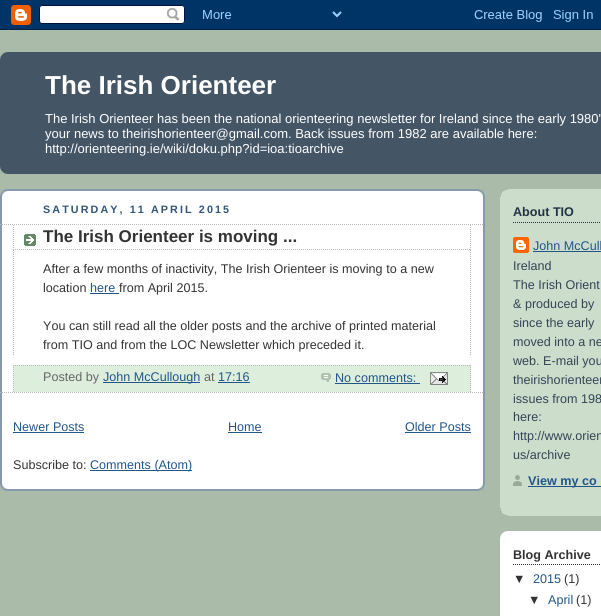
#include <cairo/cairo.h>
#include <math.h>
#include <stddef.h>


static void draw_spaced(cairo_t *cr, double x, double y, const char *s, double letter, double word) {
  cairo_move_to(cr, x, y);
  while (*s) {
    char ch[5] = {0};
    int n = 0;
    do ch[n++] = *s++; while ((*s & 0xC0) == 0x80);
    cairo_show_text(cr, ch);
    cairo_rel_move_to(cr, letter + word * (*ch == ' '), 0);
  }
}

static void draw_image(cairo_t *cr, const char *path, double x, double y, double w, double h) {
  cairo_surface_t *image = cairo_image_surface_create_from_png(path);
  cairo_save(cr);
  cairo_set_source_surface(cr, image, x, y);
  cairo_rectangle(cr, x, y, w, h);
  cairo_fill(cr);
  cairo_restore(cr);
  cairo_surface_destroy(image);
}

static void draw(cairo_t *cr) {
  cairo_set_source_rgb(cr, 170 / 255.0, 187 / 255.0, 170 / 255.0);
  cairo_paint(cr);
  draw_image(cr, "images/1.png", 0, 0, 601, 30);
  cairo_set_source_rgb(cr, 68 / 255.0, 85 / 255.0, 102 / 255.0);
  cairo_rectangle(cr, 0, 52, 601, 122);
  cairo_fill(cr);
  draw_image(cr, "images/2.png", 0, 52, 8, 8);
  draw_image(cr, "images/3.png", 0, 166, 8, 8);
  cairo_set_source_rgb(cr, 1, 1, 1);
  cairo_rectangle(cr, 2, 191, 481, 298);
  cairo_fill(cr);
  draw_image(cr, "images/4.png", 0, 441, 485, 50);
  draw_image(cr, "images/5.png", 0, 189, 485, 50);
  draw_image(cr, "images/6.png", 0, 239, 485, 202);
  cairo_new_path(cr);
  cairo_move_to(cr, 0, 224.5);
  cairo_line_to(cr, 484, 224.5);
  cairo_set_source_rgb(cr, 187 / 255.0, 187 / 255.0, 187 / 255.0);
  cairo_set_line_width(cr, 1);
  cairo_set_dash(cr, (double[]){1, 1}, 2, 0);
  cairo_stroke(cr);
  cairo_new_path(cr);
  cairo_move_to(cr, 0, 392.5);
  cairo_line_to(cr, 484, 392.5);
  cairo_stroke(cr);
  draw_image(cr, "images/7.png", 24, 234, 12, 12);
  cairo_new_path(cr);
  cairo_move_to(cr, 470.5, 225);
  cairo_line_to(cr, 470.5, 250);
  cairo_stroke(cr);
  cairo_new_path(cr);
  cairo_move_to(cr, 13, 249.5);
  cairo_line_to(cr, 471, 249.5);
  cairo_stroke(cr);
  cairo_new_path(cr);
  cairo_move_to(cr, 13.5, 225);
  cairo_line_to(cr, 13.5, 250);
  cairo_stroke(cr);
  cairo_new_path(cr);
  cairo_move_to(cr, 470.5, 250);
  cairo_line_to(cr, 470.5, 356);
  cairo_stroke(cr);
  cairo_new_path(cr);
  cairo_move_to(cr, 13.5, 250);
  cairo_line_to(cr, 13.5, 356);
  cairo_stroke(cr);
  cairo_set_source_rgb(cr, 34 / 255.0, 85 / 255.0, 136 / 255.0);
  cairo_rectangle(cr, 90, 293, 29, 1);
  cairo_fill(cr);
  cairo_set_source_rgb(cr, 221 / 255.0, 238 / 255.0, 221 / 255.0);
  cairo_rectangle(cr, 13, 365, 458, 27);
  cairo_fill(cr);
  cairo_new_path(cr);
  cairo_move_to(cr, 13, 365.5);
  cairo_line_to(cr, 471, 365.5);
  cairo_set_source_rgb(cr, 187 / 255.0, 187 / 255.0, 187 / 255.0);
  cairo_stroke(cr);
  cairo_new_path(cr);
  cairo_move_to(cr, 470.5, 365);
  cairo_line_to(cr, 470.5, 392);
  cairo_stroke(cr);
  cairo_new_path(cr);
  cairo_move_to(cr, 13.5, 365);
  cairo_line_to(cr, 13.5, 392);
  cairo_stroke(cr);
  cairo_set_source_rgb(cr, 34 / 255.0, 85 / 255.0, 136 / 255.0);
  cairo_rectangle(cr, 103, 382, 97, 1);
  cairo_fill(cr);
  cairo_rectangle(cr, 218, 382, 32, 1);
  cairo_fill(cr);
  draw_image(cr, "images/8.png", 321, 373, 10, 9);
  cairo_rectangle(cr, 335, 383, 85, 1);
  cairo_fill(cr);
  draw_image(cr, "images/9.png", 430, 372, 18, 13);
  cairo_rectangle(cr, 13, 432, 71, 1);
  cairo_fill(cr);
  cairo_rectangle(cr, 228, 432, 34, 1);
  cairo_fill(cr);
  cairo_rectangle(cr, 405, 432, 66, 1);
  cairo_fill(cr);
  cairo_rectangle(cr, 90, 470, 102, 1);
  cairo_fill(cr);
  cairo_set_source_rgb(cr, 204 / 255.0, 221 / 255.0, 204 / 255.0);
  cairo_rectangle(cr, 500, 189, 101, 327);
  cairo_fill(cr);
  draw_image(cr, "images/10.png", 500, 508, 8, 8);
  draw_image(cr, "images/11.png", 500, 189, 8, 8);
  cairo_new_path(cr);
  cairo_move_to(cr, 513, 222.5);
  cairo_line_to(cr, 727, 222.5);
  cairo_set_source_rgb(cr, 34 / 255.0, 51 / 255.0, 68 / 255.0);
  cairo_stroke(cr);
  draw_image(cr, "images/12.png", 513, 237, 16, 16);
  cairo_set_source_rgb(cr, 34 / 255.0, 85 / 255.0, 136 / 255.0);
  cairo_rectangle(cr, 533, 251, 68, 1);
  cairo_fill(cr);
  draw_image(cr, "images/13.png", 513, 475, 9, 11);
  cairo_rectangle(cr, 528, 486, 73, 1);
  cairo_fill(cr);
  cairo_set_source_rgb(cr, 1, 1, 1);
  cairo_rectangle(cr, 500, 531, 101, 85);
  cairo_fill(cr);
  draw_image(cr, "images/14.png", 500, 531, 8, 8);
  cairo_new_path(cr);
  cairo_move_to(cr, 513, 564.5);
  cairo_line_to(cr, 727, 564.5);
  cairo_set_source_rgb(cr, 51 / 255.0, 51 / 255.0, 51 / 255.0);
  cairo_stroke(cr);
  cairo_select_font_face(cr, "Liberation Sans", CAIRO_FONT_SLANT_NORMAL, CAIRO_FONT_WEIGHT_BOLD);
  cairo_set_font_size(cr, 26);
  cairo_set_source_rgb(cr, 1, 1, 1);
  cairo_move_to(cr, 45, 94);
  cairo_show_text(cr, "The Irish Orienteer");
  cairo_select_font_face(cr, "Liberation Sans", CAIRO_FONT_SLANT_NORMAL, CAIRO_FONT_WEIGHT_NORMAL);
  cairo_set_font_size(cr, 13);
  cairo_move_to(cr, 45, 123);
  cairo_show_text(cr, "The Irish Orienteer has been the national orienteering newsletter for Ireland since the early 1980'");
  cairo_move_to(cr, 45, 138);
  cairo_show_text(cr, "your news to theirishorienteer@gmail.com. Back issues from 1982 are available here:");
  cairo_move_to(cr, 45, 153);
  cairo_show_text(cr, "http://orienteering.ie/wiki/doku.php?id=ioa:tioarchive");
  cairo_select_font_face(cr, "Liberation Sans", CAIRO_FONT_SLANT_NORMAL, CAIRO_FONT_WEIGHT_BOLD);
  cairo_set_font_size(cr, 10.75);
  cairo_set_source_rgb(cr, 51 / 255.0, 85 / 255.0, 119 / 255.0);
  draw_spaced(cr, 43, 213, "SATURDAY, 11 APRIL 2015", 2.1, 0);
  cairo_set_font_size(cr, 17);
  cairo_set_source_rgb(cr, 51 / 255.0, 51 / 255.0, 51 / 255.0);
  cairo_move_to(cr, 43, 242);
  cairo_show_text(cr, "The Irish Orienteer is moving ...");
  cairo_select_font_face(cr, "Liberation Sans", CAIRO_FONT_SLANT_NORMAL, CAIRO_FONT_WEIGHT_NORMAL);
  cairo_set_font_size(cr, 12.6);
  cairo_move_to(cr, 43, 273);
  cairo_show_text(cr, "After a few months of inactivity, The Irish Orienteer is moving to a new");
  cairo_move_to(cr, 43, 292);
  cairo_show_text(cr, "location");
  cairo_set_source_rgb(cr, 34 / 255.0, 85 / 255.0, 136 / 255.0);
  cairo_move_to(cr, 90, 292);
  cairo_show_text(cr, "here");
  cairo_set_source_rgb(cr, 51 / 255.0, 51 / 255.0, 51 / 255.0);
  cairo_move_to(cr, 119, 292);
  cairo_show_text(cr, "from April 2015.");
  cairo_move_to(cr, 43, 330);
  cairo_show_text(cr, "You can still read all the older posts and the archive of printed material");
  cairo_move_to(cr, 43, 349);
  cairo_show_text(cr, "from TIO and from the LOC Newsletter which preceded it.");
  cairo_set_source_rgb(cr, 102 / 255.0, 102 / 255.0, 102 / 255.0);
  cairo_move_to(cr, 43, 381);
  cairo_show_text(cr, "Posted by");
  cairo_set_source_rgb(cr, 34 / 255.0, 85 / 255.0, 136 / 255.0);
  cairo_move_to(cr, 103, 381);
  cairo_show_text(cr, "John McCullough");
  cairo_set_source_rgb(cr, 102 / 255.0, 102 / 255.0, 102 / 255.0);
  cairo_move_to(cr, 204, 381);
  cairo_show_text(cr, "at");
  cairo_set_source_rgb(cr, 34 / 255.0, 85 / 255.0, 136 / 255.0);
  cairo_move_to(cr, 218, 381);
  cairo_show_text(cr, "17:16");
  cairo_move_to(cr, 335, 382);
  cairo_show_text(cr, "No comments:");
  cairo_move_to(cr, 13, 431);
  cairo_show_text(cr, "Newer Posts");
  cairo_move_to(cr, 228, 431);
  cairo_show_text(cr, "Home");
  cairo_move_to(cr, 405, 431);
  cairo_show_text(cr, "Older Posts");
  cairo_set_source_rgb(cr, 51 / 255.0, 51 / 255.0, 51 / 255.0);
  cairo_move_to(cr, 13, 469);
  cairo_show_text(cr, "Subscribe to:");
  cairo_set_source_rgb(cr, 34 / 255.0, 85 / 255.0, 136 / 255.0);
  cairo_move_to(cr, 90, 469);
  cairo_show_text(cr, "Comments (Atom)");
  cairo_select_font_face(cr, "Liberation Sans", CAIRO_FONT_SLANT_NORMAL, CAIRO_FONT_WEIGHT_BOLD);
  cairo_set_source_rgb(cr, 34 / 255.0, 51 / 255.0, 68 / 255.0);
  cairo_move_to(cr, 513, 216);
  cairo_show_text(cr, "About TIO");
  cairo_select_font_face(cr, "Liberation Sans", CAIRO_FONT_SLANT_NORMAL, CAIRO_FONT_WEIGHT_NORMAL);
  cairo_set_source_rgb(cr, 34 / 255.0, 85 / 255.0, 136 / 255.0);
  cairo_move_to(cr, 533, 250);
  cairo_show_text(cr, "John McCull");
  cairo_set_source_rgb(cr, 51 / 255.0, 68 / 255.0, 85 / 255.0);
  cairo_move_to(cr, 513, 270);
  cairo_show_text(cr, "Ireland");
  cairo_move_to(cr, 513, 289);
  cairo_show_text(cr, "The Irish Orient");
  cairo_move_to(cr, 513, 308);
  cairo_show_text(cr, "& produced by");
  cairo_move_to(cr, 513, 327);
  cairo_show_text(cr, "since the early");
  cairo_move_to(cr, 513, 346);
  cairo_show_text(cr, "moved into a ne");
  cairo_move_to(cr, 513, 365);
  cairo_show_text(cr, "web. E-mail you");
  cairo_move_to(cr, 513, 384);
  cairo_show_text(cr, "theirishorienteer");
  cairo_move_to(cr, 513, 403);
  cairo_show_text(cr, "issues from 198");
  cairo_move_to(cr, 513, 421);
  cairo_show_text(cr, "here:");
  cairo_move_to(cr, 513, 440);
  cairo_show_text(cr, "http://www.orien");
  cairo_move_to(cr, 513, 459);
  cairo_show_text(cr, "us/archive");
  cairo_select_font_face(cr, "Liberation Sans", CAIRO_FONT_SLANT_NORMAL, CAIRO_FONT_WEIGHT_BOLD);
  cairo_set_source_rgb(cr, 34 / 255.0, 85 / 255.0, 136 / 255.0);
  cairo_move_to(cr, 528, 485);
  cairo_show_text(cr, "View my co");
  cairo_set_source_rgb(cr, 51 / 255.0, 51 / 255.0, 51 / 255.0);
  cairo_move_to(cr, 513, 559);
  cairo_show_text(cr, "Blog Archive");
  cairo_select_font_face(cr, "Liberation Sans", CAIRO_FONT_SLANT_NORMAL, CAIRO_FONT_WEIGHT_NORMAL);
  cairo_move_to(cr, 513, 583);
  cairo_show_text(cr, "▼");
  cairo_set_source_rgb(cr, 34 / 255.0, 85 / 255.0, 136 / 255.0);
  cairo_move_to(cr, 533, 583);
  cairo_show_text(cr, "2015");
  cairo_set_source_rgb(cr, 51 / 255.0, 51 / 255.0, 51 / 255.0);
  cairo_move_to(cr, 564, 583);
  cairo_show_text(cr, "(1)");
  cairo_move_to(cr, 528, 604);
  cairo_show_text(cr, "▼");
  cairo_set_source_rgb(cr, 34 / 255.0, 85 / 255.0, 136 / 255.0);
  cairo_move_to(cr, 548, 604);
  cairo_show_text(cr, "April");
  cairo_set_source_rgb(cr, 51 / 255.0, 51 / 255.0, 51 / 255.0);
  cairo_move_to(cr, 576, 604);
  cairo_show_text(cr, "(1)");
}

int main(void) {
  cairo_surface_t *surface = cairo_image_surface_create(CAIRO_FORMAT_RGB24, 601, 616);
  cairo_t *cr = cairo_create(surface);
  cairo_font_options_t *options = cairo_font_options_create();
  cairo_font_options_set_hint_metrics(options, CAIRO_HINT_METRICS_OFF);
  cairo_font_options_set_hint_style(options, CAIRO_HINT_STYLE_NONE);
  cairo_set_font_options(cr, options);
  cairo_set_miter_limit(cr, 4);
  draw(cr);
  cairo_surface_write_to_png(surface, "out.png");
  cairo_font_options_destroy(options);
  cairo_destroy(cr);
  cairo_surface_destroy(surface);
  return 0;
}
